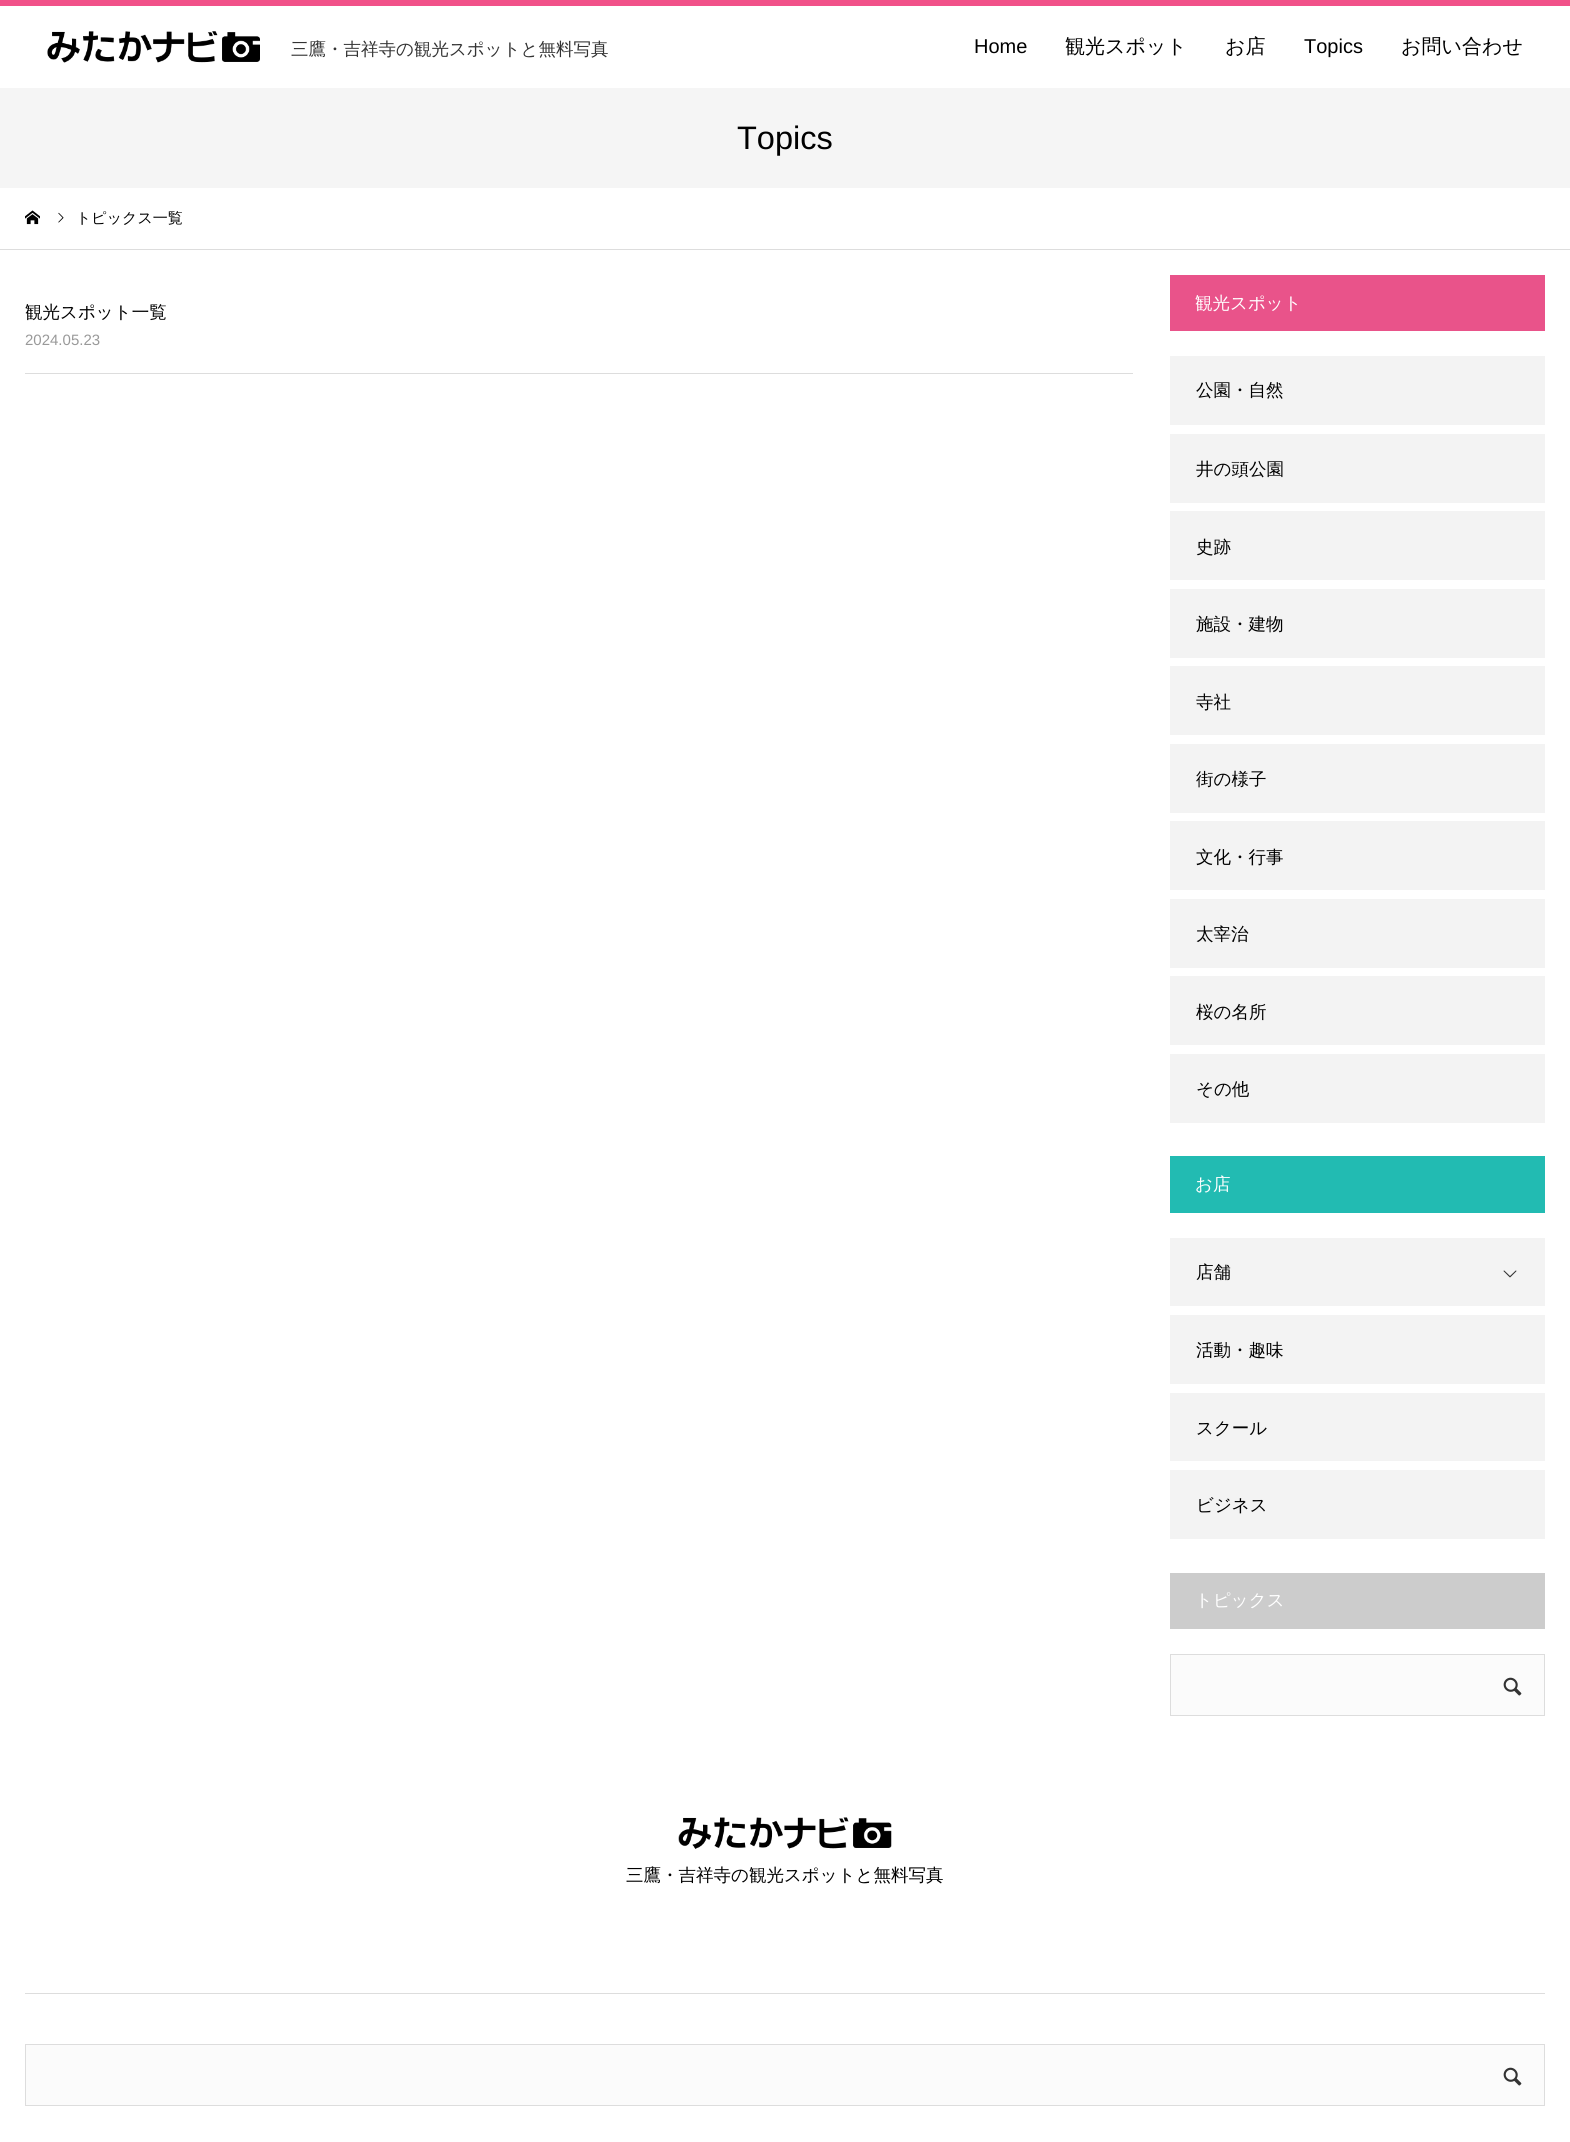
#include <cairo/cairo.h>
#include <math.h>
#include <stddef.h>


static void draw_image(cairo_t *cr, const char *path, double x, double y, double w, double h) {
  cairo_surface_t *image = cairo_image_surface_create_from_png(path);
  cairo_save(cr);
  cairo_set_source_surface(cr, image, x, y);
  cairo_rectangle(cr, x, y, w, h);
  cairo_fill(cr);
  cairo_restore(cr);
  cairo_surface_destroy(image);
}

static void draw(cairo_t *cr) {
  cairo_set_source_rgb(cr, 1, 1, 1);
  cairo_paint(cr);
  cairo_set_source_rgb(cr, 241 / 255.0, 81 / 255.0, 137 / 255.0);
  cairo_rectangle(cr, 0, 0, 1570, 6);
  cairo_fill(cr);
  draw_image(cr, "images/1.png", 47, 31, 213, 32);
  cairo_set_source_rgb(cr, 245 / 255.0, 245 / 255.0, 245 / 255.0);
  cairo_rectangle(cr, 0, 88, 1570, 100);
  cairo_fill(cr);
  cairo_set_source_rgb(cr, 221 / 255.0, 221 / 255.0, 221 / 255.0);
  cairo_rectangle(cr, 0, 249, 1570, 1);
  cairo_fill(cr);
  draw_image(cr, "images/2.png", 25, 210, 15, 15);
  draw_image(cr, "images/3.png", 58, 212, 6, 11);
  cairo_rectangle(cr, 25, 373, 1108, 1);
  cairo_fill(cr);
  cairo_set_source_rgb(cr, 233 / 255.0, 83 / 255.0, 138 / 255.0);
  cairo_rectangle(cr, 1170, 275, 375, 56);
  cairo_fill(cr);
  cairo_set_source_rgb(cr, 243 / 255.0, 243 / 255.0, 243 / 255.0);
  cairo_rectangle(cr, 1170, 356, 375, 69);
  cairo_fill(cr);
  cairo_rectangle(cr, 1170, 434, 375, 69);
  cairo_fill(cr);
  cairo_rectangle(cr, 1170, 511, 375, 69);
  cairo_fill(cr);
  cairo_rectangle(cr, 1170, 589, 375, 69);
  cairo_fill(cr);
  cairo_rectangle(cr, 1170, 666, 375, 69);
  cairo_fill(cr);
  cairo_rectangle(cr, 1170, 744, 375, 69);
  cairo_fill(cr);
  cairo_rectangle(cr, 1170, 821, 375, 69);
  cairo_fill(cr);
  cairo_rectangle(cr, 1170, 899, 375, 69);
  cairo_fill(cr);
  cairo_rectangle(cr, 1170, 976, 375, 69);
  cairo_fill(cr);
  cairo_rectangle(cr, 1170, 1054, 375, 69);
  cairo_fill(cr);
  cairo_set_source_rgb(cr, 34 / 255.0, 187 / 255.0, 178 / 255.0);
  cairo_rectangle(cr, 1170, 1156, 375, 57);
  cairo_fill(cr);
  cairo_set_source_rgb(cr, 243 / 255.0, 243 / 255.0, 243 / 255.0);
  cairo_rectangle(cr, 1170, 1238, 375, 68);
  cairo_fill(cr);
  draw_image(cr, "images/4.png", 1503, 1270, 14, 8);
  cairo_rectangle(cr, 1170, 1315, 375, 69);
  cairo_fill(cr);
  cairo_rectangle(cr, 1170, 1393, 375, 68);
  cairo_fill(cr);
  cairo_rectangle(cr, 1170, 1470, 375, 69);
  cairo_fill(cr);
  cairo_set_source_rgb(cr, 204 / 255.0, 204 / 255.0, 204 / 255.0);
  cairo_rectangle(cr, 1170, 1573, 375, 56);
  cairo_fill(cr);
  cairo_set_source_rgb(cr, 251 / 255.0, 251 / 255.0, 251 / 255.0);
  cairo_rectangle(cr, 1170.5, 1654.5, 374, 61);
  cairo_fill_preserve(cr);
  cairo_set_source_rgb(cr, 221 / 255.0, 221 / 255.0, 221 / 255.0);
  cairo_set_line_width(cr, 1);
  cairo_stroke(cr);
  draw_image(cr, "images/5.png", 1503, 1677, 19, 19);
  draw_image(cr, "images/6.png", 678, 1817, 214, 32);
  cairo_rectangle(cr, 25, 1993, 1520, 1);
  cairo_fill(cr);
  cairo_set_source_rgb(cr, 251 / 255.0, 251 / 255.0, 251 / 255.0);
  cairo_rectangle(cr, 25.5, 2044.5, 1519, 61);
  cairo_fill_preserve(cr);
  cairo_set_source_rgb(cr, 221 / 255.0, 221 / 255.0, 221 / 255.0);
  cairo_stroke(cr);
  draw_image(cr, "images/5.png", 1503, 2067, 19, 19);
  cairo_select_font_face(cr, "WenQuanYi Zen Hei Medium", CAIRO_FONT_SLANT_NORMAL, CAIRO_FONT_WEIGHT_NORMAL);
  cairo_set_font_size(cr, 17.5);
  cairo_set_source_rgb(cr, 51 / 255.0, 51 / 255.0, 51 / 255.0);
  cairo_move_to(cr, 291, 55);
  cairo_show_text(cr, "三鷹・吉祥寺の観光スポットと無料写真");
  cairo_select_font_face(cr, "Liberation Sans", CAIRO_FONT_SLANT_NORMAL, CAIRO_FONT_WEIGHT_NORMAL);
  cairo_set_font_size(cr, 20);
  cairo_set_source_rgb(cr, 0, 0, 0);
  cairo_move_to(cr, 974, 53);
  cairo_show_text(cr, "Home");
  cairo_select_font_face(cr, "WenQuanYi Zen Hei Medium", CAIRO_FONT_SLANT_NORMAL, CAIRO_FONT_WEIGHT_NORMAL);
  cairo_move_to(cr, 1065, 53);
  cairo_show_text(cr, "観光スポット");
  cairo_move_to(cr, 1225, 53);
  cairo_show_text(cr, "お店");
  cairo_select_font_face(cr, "Liberation Sans", CAIRO_FONT_SLANT_NORMAL, CAIRO_FONT_WEIGHT_NORMAL);
  cairo_move_to(cr, 1304, 53);
  cairo_show_text(cr, "Topics");
  cairo_select_font_face(cr, "WenQuanYi Zen Hei Medium", CAIRO_FONT_SLANT_NORMAL, CAIRO_FONT_WEIGHT_NORMAL);
  cairo_move_to(cr, 1401, 53);
  cairo_show_text(cr, "お問い合わせ");
  cairo_select_font_face(cr, "Liberation Sans", CAIRO_FONT_SLANT_NORMAL, CAIRO_FONT_WEIGHT_NORMAL);
  cairo_set_font_size(cr, 32.5);
  cairo_move_to(cr, 737, 149);
  cairo_show_text(cr, "Topics");
  cairo_select_font_face(cr, "WenQuanYi Zen Hei Medium", CAIRO_FONT_SLANT_NORMAL, CAIRO_FONT_WEIGHT_NORMAL);
  cairo_set_font_size(cr, 15);
  cairo_move_to(cr, 76, 223);
  cairo_show_text(cr, "トピックス一覧");
  cairo_set_font_size(cr, 17.5);
  cairo_move_to(cr, 25, 318);
  cairo_show_text(cr, "観光スポット一覧");
  cairo_select_font_face(cr, "Liberation Sans", CAIRO_FONT_SLANT_NORMAL, CAIRO_FONT_WEIGHT_NORMAL);
  cairo_set_font_size(cr, 15);
  cairo_set_source_rgb(cr, 153 / 255.0, 153 / 255.0, 153 / 255.0);
  cairo_move_to(cr, 25, 345);
  cairo_show_text(cr, "2024.05.23");
  cairo_select_font_face(cr, "WenQuanYi Zen Hei Medium", CAIRO_FONT_SLANT_NORMAL, CAIRO_FONT_WEIGHT_NORMAL);
  cairo_set_font_size(cr, 17.5);
  cairo_set_source_rgb(cr, 1, 1, 1);
  cairo_move_to(cr, 1195, 309);
  cairo_show_text(cr, "観光スポット");
  cairo_set_source_rgb(cr, 0, 0, 0);
  cairo_move_to(cr, 1196, 396);
  cairo_show_text(cr, "公園・自然");
  cairo_move_to(cr, 1196, 475);
  cairo_show_text(cr, "井の頭公園");
  cairo_move_to(cr, 1196, 553);
  cairo_show_text(cr, "史跡");
  cairo_move_to(cr, 1196, 630);
  cairo_show_text(cr, "施設・建物");
  cairo_move_to(cr, 1196, 708);
  cairo_show_text(cr, "寺社");
  cairo_move_to(cr, 1196, 785);
  cairo_show_text(cr, "街の様子");
  cairo_move_to(cr, 1196, 863);
  cairo_show_text(cr, "文化・行事");
  cairo_move_to(cr, 1196, 940);
  cairo_show_text(cr, "太宰治");
  cairo_move_to(cr, 1196, 1018);
  cairo_show_text(cr, "桜の名所");
  cairo_move_to(cr, 1196, 1095);
  cairo_show_text(cr, "その他");
  cairo_set_source_rgb(cr, 1, 1, 1);
  cairo_move_to(cr, 1195, 1190);
  cairo_show_text(cr, "お店");
  cairo_set_source_rgb(cr, 0, 0, 0);
  cairo_move_to(cr, 1196, 1278);
  cairo_show_text(cr, "店舗");
  cairo_move_to(cr, 1196, 1356);
  cairo_show_text(cr, "活動・趣味");
  cairo_move_to(cr, 1196, 1434);
  cairo_show_text(cr, "スクール");
  cairo_move_to(cr, 1196, 1511);
  cairo_show_text(cr, "ビジネス");
  cairo_set_source_rgb(cr, 1, 1, 1);
  cairo_move_to(cr, 1195, 1606);
  cairo_show_text(cr, "トピックス");
  cairo_set_source_rgb(cr, 0, 0, 0);
  cairo_move_to(cr, 626, 1881);
  cairo_show_text(cr, "三鷹・吉祥寺の観光スポットと無料写真");
}

int main(void) {
  cairo_surface_t *surface = cairo_image_surface_create(CAIRO_FORMAT_RGB24, 1570, 2142);
  cairo_t *cr = cairo_create(surface);
  cairo_font_options_t *options = cairo_font_options_create();
  cairo_font_options_set_hint_metrics(options, CAIRO_HINT_METRICS_OFF);
  cairo_font_options_set_hint_style(options, CAIRO_HINT_STYLE_NONE);
  cairo_set_font_options(cr, options);
  cairo_set_miter_limit(cr, 4);
  draw(cr);
  cairo_surface_write_to_png(surface, "out.png");
  cairo_font_options_destroy(options);
  cairo_destroy(cr);
  cairo_surface_destroy(surface);
  return 0;
}
